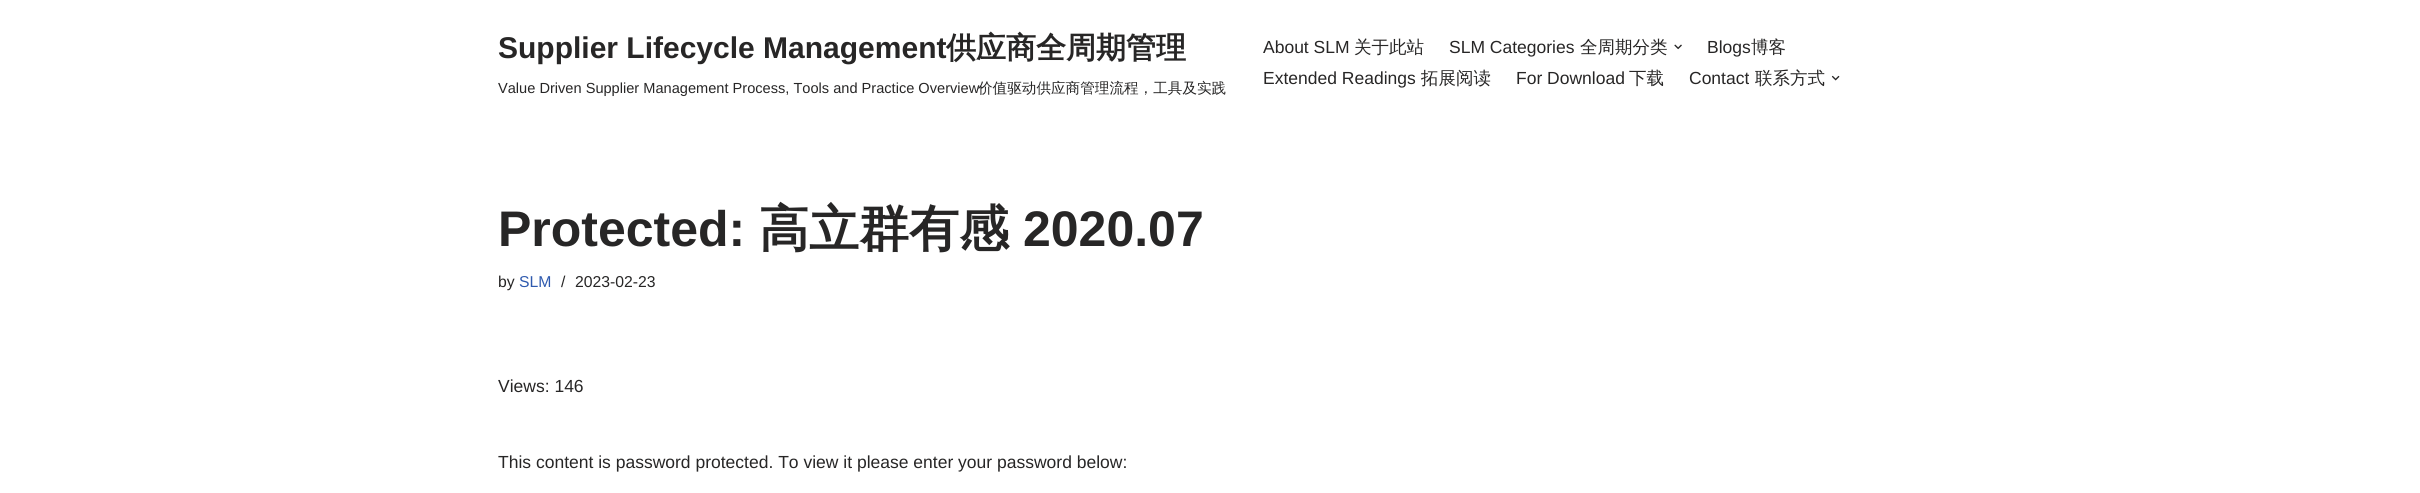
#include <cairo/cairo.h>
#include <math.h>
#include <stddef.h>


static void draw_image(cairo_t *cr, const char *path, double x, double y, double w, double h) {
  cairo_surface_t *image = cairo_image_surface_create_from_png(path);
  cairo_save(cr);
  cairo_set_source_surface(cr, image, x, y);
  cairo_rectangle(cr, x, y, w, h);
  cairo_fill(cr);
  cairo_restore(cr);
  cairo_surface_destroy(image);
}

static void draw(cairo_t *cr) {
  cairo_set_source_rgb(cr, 1, 1, 1);
  cairo_paint(cr);
  draw_image(cr, "images/1.png", 1674, 44, 8, 6);
  draw_image(cr, "images/2.png", 1831, 75, 9, 6);
  cairo_select_font_face(cr, "Liberation Sans", CAIRO_FONT_SLANT_NORMAL, CAIRO_FONT_WEIGHT_BOLD);
  cairo_set_font_size(cr, 30);
  cairo_set_source_rgb(cr, 39 / 255.0, 38 / 255.0, 38 / 255.0);
  cairo_move_to(cr, 498, 58);
  cairo_show_text(cr, "Supplier Lifecycle Management");
  cairo_select_font_face(cr, "WenQuanYi Zen Hei", CAIRO_FONT_SLANT_NORMAL, CAIRO_FONT_WEIGHT_BOLD);
  cairo_move_to(cr, 946, 58);
  cairo_show_text(cr, "供应商全周期管理");
  cairo_select_font_face(cr, "Liberation Sans", CAIRO_FONT_SLANT_NORMAL, CAIRO_FONT_WEIGHT_NORMAL);
  cairo_set_font_size(cr, 14.6);
  cairo_move_to(cr, 498, 93);
  cairo_show_text(cr, "Value Driven Supplier Management Process, Tools and Practice Overview");
  cairo_select_font_face(cr, "WenQuanYi Zen Hei Medium", CAIRO_FONT_SLANT_NORMAL, CAIRO_FONT_WEIGHT_NORMAL);
  cairo_move_to(cr, 978, 93);
  cairo_show_text(cr, "价值驱动供应商管理流程，工具及实践");
  cairo_select_font_face(cr, "Liberation Sans", CAIRO_FONT_SLANT_NORMAL, CAIRO_FONT_WEIGHT_NORMAL);
  cairo_set_font_size(cr, 17.5);
  cairo_move_to(cr, 1263, 53);
  cairo_show_text(cr, "About SLM");
  cairo_select_font_face(cr, "WenQuanYi Zen Hei Medium", CAIRO_FONT_SLANT_NORMAL, CAIRO_FONT_WEIGHT_NORMAL);
  cairo_move_to(cr, 1354, 53);
  cairo_show_text(cr, "关于此站");
  cairo_select_font_face(cr, "Liberation Sans", CAIRO_FONT_SLANT_NORMAL, CAIRO_FONT_WEIGHT_NORMAL);
  cairo_move_to(cr, 1449, 53);
  cairo_show_text(cr, "SLM Categories");
  cairo_select_font_face(cr, "WenQuanYi Zen Hei Medium", CAIRO_FONT_SLANT_NORMAL, CAIRO_FONT_WEIGHT_NORMAL);
  cairo_move_to(cr, 1580, 53);
  cairo_show_text(cr, "全周期分类");
  cairo_select_font_face(cr, "Liberation Sans", CAIRO_FONT_SLANT_NORMAL, CAIRO_FONT_WEIGHT_NORMAL);
  cairo_move_to(cr, 1707, 53);
  cairo_show_text(cr, "Blogs");
  cairo_select_font_face(cr, "WenQuanYi Zen Hei Medium", CAIRO_FONT_SLANT_NORMAL, CAIRO_FONT_WEIGHT_NORMAL);
  cairo_move_to(cr, 1751, 53);
  cairo_show_text(cr, "博客");
  cairo_select_font_face(cr, "Liberation Sans", CAIRO_FONT_SLANT_NORMAL, CAIRO_FONT_WEIGHT_NORMAL);
  cairo_move_to(cr, 1263, 84);
  cairo_show_text(cr, "Extended Readings");
  cairo_select_font_face(cr, "WenQuanYi Zen Hei Medium", CAIRO_FONT_SLANT_NORMAL, CAIRO_FONT_WEIGHT_NORMAL);
  cairo_move_to(cr, 1421, 84);
  cairo_show_text(cr, "拓展阅读");
  cairo_select_font_face(cr, "Liberation Sans", CAIRO_FONT_SLANT_NORMAL, CAIRO_FONT_WEIGHT_NORMAL);
  cairo_move_to(cr, 1516, 84);
  cairo_show_text(cr, "For Download");
  cairo_select_font_face(cr, "WenQuanYi Zen Hei Medium", CAIRO_FONT_SLANT_NORMAL, CAIRO_FONT_WEIGHT_NORMAL);
  cairo_move_to(cr, 1629, 84);
  cairo_show_text(cr, "下载");
  cairo_select_font_face(cr, "Liberation Sans", CAIRO_FONT_SLANT_NORMAL, CAIRO_FONT_WEIGHT_NORMAL);
  cairo_move_to(cr, 1689, 84);
  cairo_show_text(cr, "Contact");
  cairo_select_font_face(cr, "WenQuanYi Zen Hei Medium", CAIRO_FONT_SLANT_NORMAL, CAIRO_FONT_WEIGHT_NORMAL);
  cairo_move_to(cr, 1755, 84);
  cairo_show_text(cr, "联系方式");
  cairo_select_font_face(cr, "Liberation Sans", CAIRO_FONT_SLANT_NORMAL, CAIRO_FONT_WEIGHT_BOLD);
  cairo_set_font_size(cr, 50);
  cairo_move_to(cr, 498, 246);
  cairo_show_text(cr, "Protected:");
  cairo_select_font_face(cr, "WenQuanYi Zen Hei", CAIRO_FONT_SLANT_NORMAL, CAIRO_FONT_WEIGHT_BOLD);
  cairo_move_to(cr, 759, 246);
  cairo_show_text(cr, "高立群有感");
  cairo_select_font_face(cr, "Liberation Sans", CAIRO_FONT_SLANT_NORMAL, CAIRO_FONT_WEIGHT_BOLD);
  cairo_move_to(cr, 1023, 246);
  cairo_show_text(cr, "2020.07");
  cairo_select_font_face(cr, "Liberation Sans", CAIRO_FONT_SLANT_NORMAL, CAIRO_FONT_WEIGHT_NORMAL);
  cairo_set_font_size(cr, 15.75);
  cairo_move_to(cr, 498, 287);
  cairo_show_text(cr, "by");
  cairo_set_source_rgb(cr, 47 / 255.0, 90 / 255.0, 174 / 255.0);
  cairo_move_to(cr, 519, 287);
  cairo_show_text(cr, "SLM");
  cairo_set_source_rgb(cr, 39 / 255.0, 38 / 255.0, 38 / 255.0);
  cairo_move_to(cr, 561, 287);
  cairo_show_text(cr, "/");
  cairo_move_to(cr, 575, 287);
  cairo_show_text(cr, "2023-02-23");
  cairo_set_font_size(cr, 17.5);
  cairo_move_to(cr, 498, 392);
  cairo_show_text(cr, "Views: 146");
  cairo_move_to(cr, 498, 468);
  cairo_show_text(cr, "This content is password protected. To view it please enter your password below:");
}

int main(void) {
  cairo_surface_t *surface = cairo_image_surface_create(CAIRO_FORMAT_RGB24, 2420, 493);
  cairo_t *cr = cairo_create(surface);
  cairo_font_options_t *options = cairo_font_options_create();
  cairo_font_options_set_hint_metrics(options, CAIRO_HINT_METRICS_OFF);
  cairo_font_options_set_hint_style(options, CAIRO_HINT_STYLE_NONE);
  cairo_set_font_options(cr, options);
  cairo_set_miter_limit(cr, 4);
  draw(cr);
  cairo_surface_write_to_png(surface, "out.png");
  cairo_font_options_destroy(options);
  cairo_destroy(cr);
  cairo_surface_destroy(surface);
  return 0;
}
